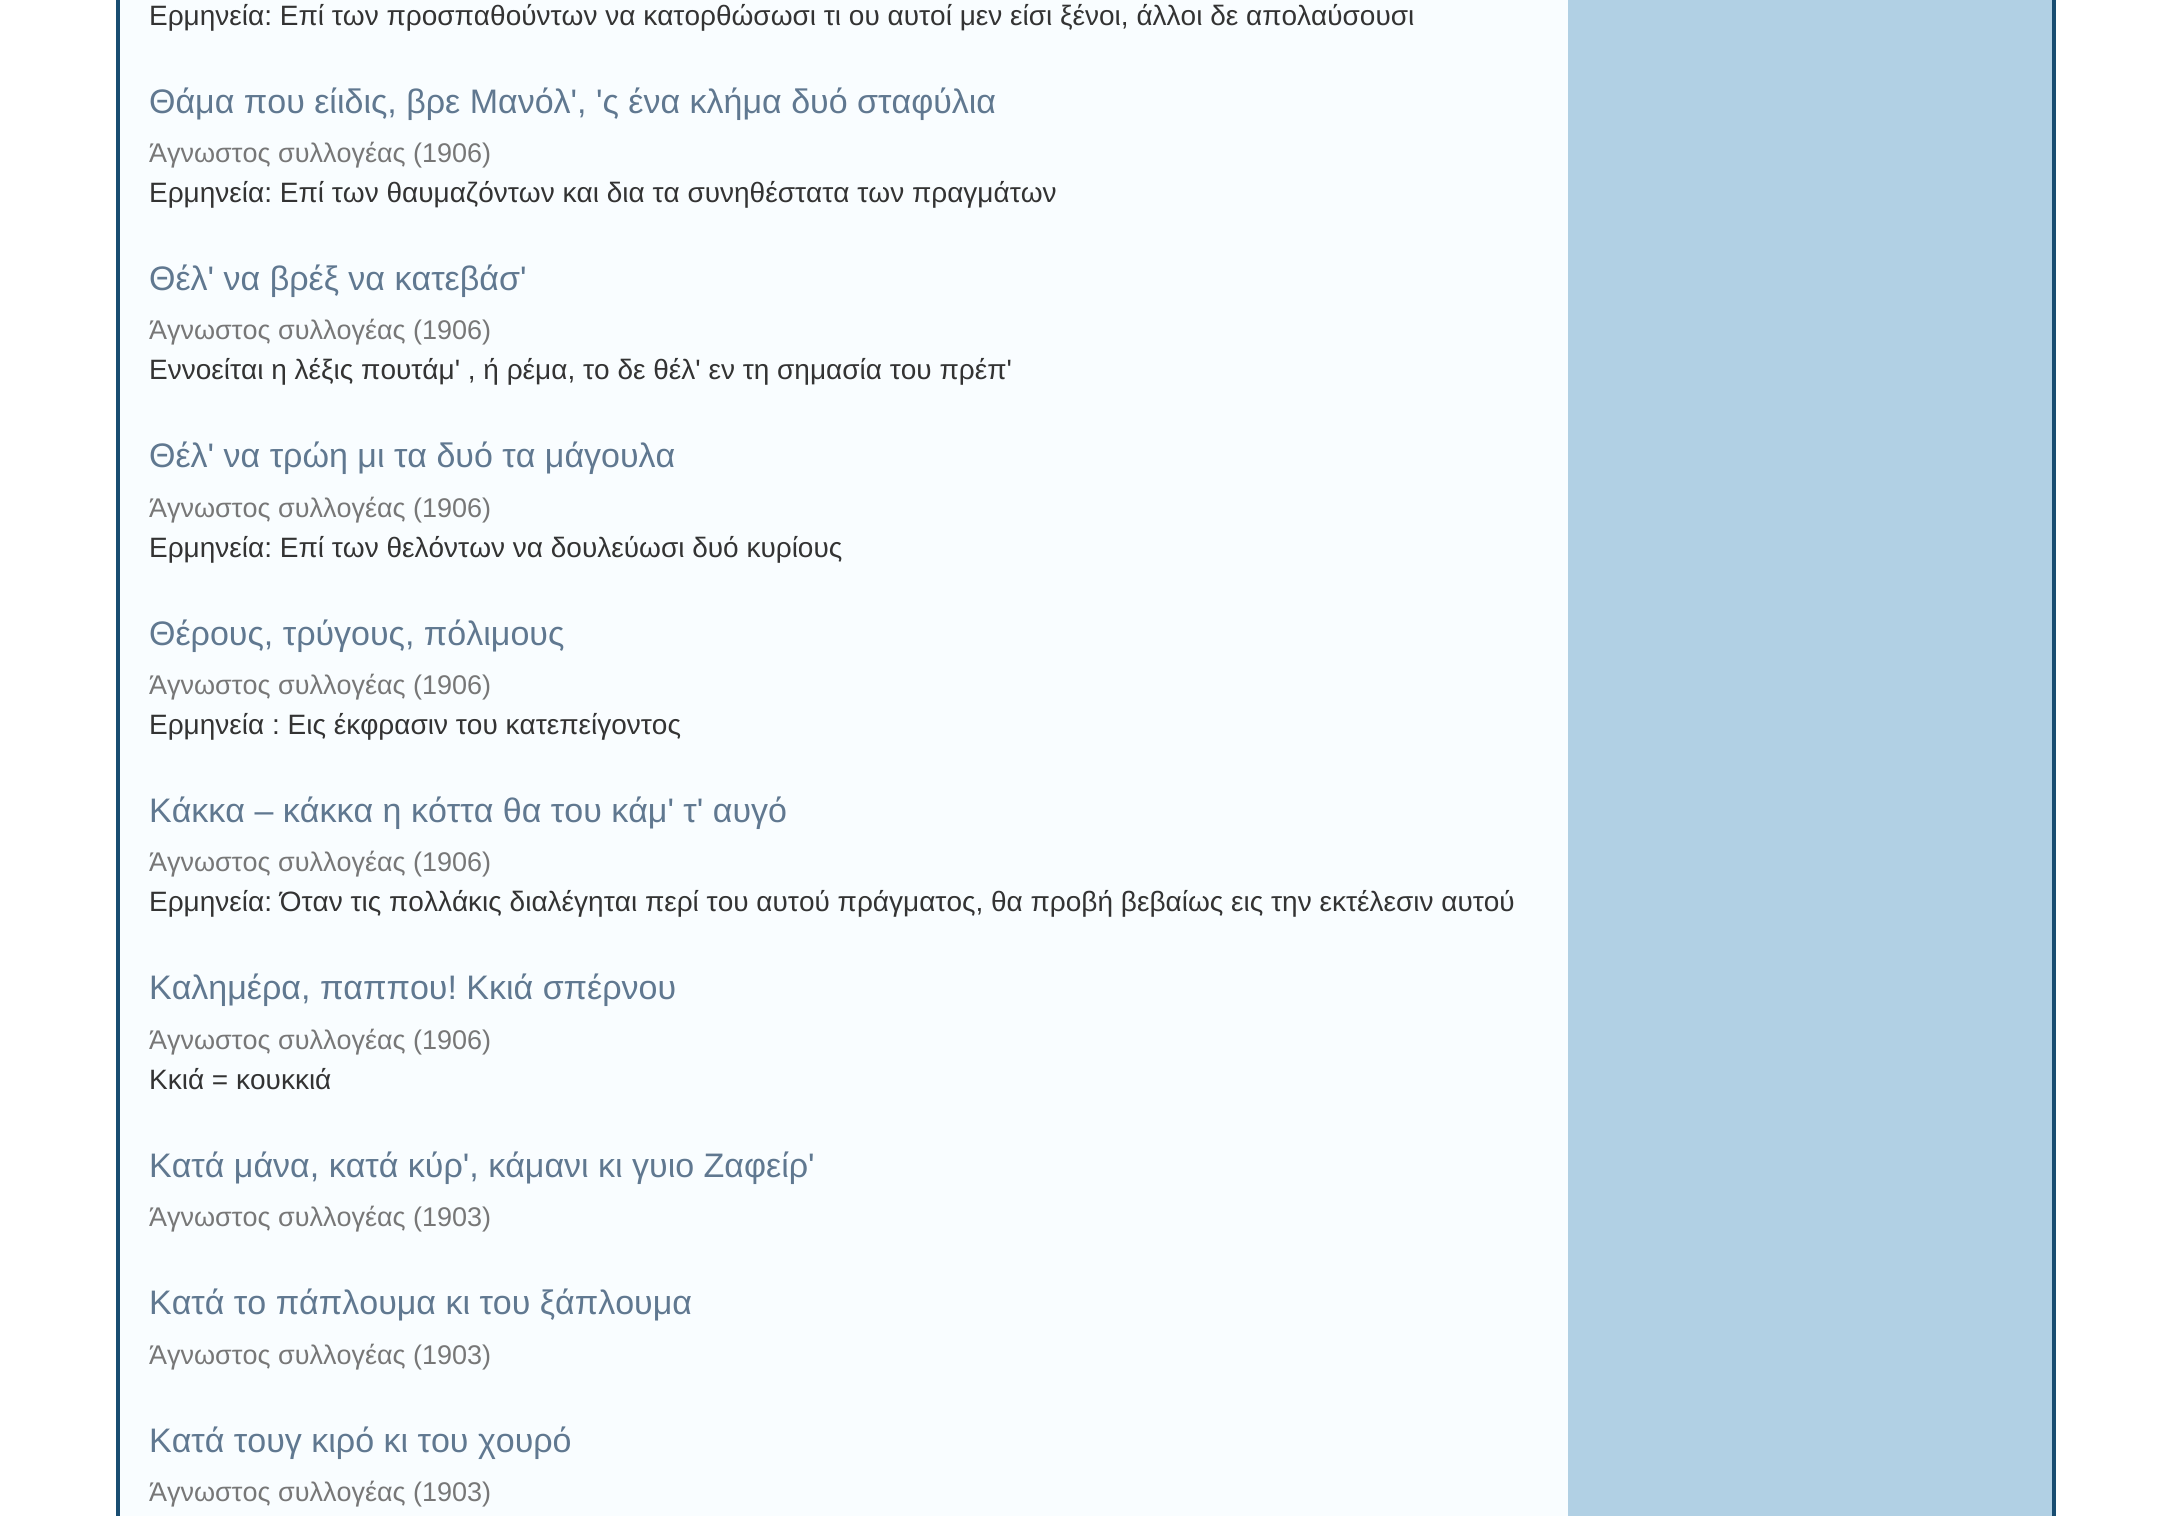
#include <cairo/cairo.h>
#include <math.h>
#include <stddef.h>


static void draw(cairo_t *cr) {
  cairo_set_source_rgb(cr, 1, 1, 1);
  cairo_paint(cr);
  cairo_set_source_rgb(cr, 25 / 255.0, 77 / 255.0, 113 / 255.0);
  cairo_rectangle(cr, 2052, 0, 4, 1516);
  cairo_fill(cr);
  cairo_rectangle(cr, 116, 0, 4, 1516);
  cairo_fill(cr);
  cairo_set_source_rgb(cr, 177 / 255.0, 208 / 255.0, 228 / 255.0);
  cairo_rectangle(cr, 1568, 0, 484, 1516);
  cairo_fill(cr);
  cairo_set_source_rgb(cr, 249 / 255.0, 253 / 255.0, 1);
  cairo_rectangle(cr, 120, 0, 1448, 1516);
  cairo_fill(cr);
  cairo_select_font_face(cr, "Liberation Sans", CAIRO_FONT_SLANT_NORMAL, CAIRO_FONT_WEIGHT_NORMAL);
  cairo_set_font_size(cr, 28);
  cairo_set_source_rgb(cr, 51 / 255.0, 51 / 255.0, 51 / 255.0);
  cairo_move_to(cr, 149, 25);
  cairo_show_text(cr, "Ερμηνεία: Επί των προσπαθούντων να κατορθώσωσι τι ου αυτοί μεν είσι ξένοι, άλλοι δε απολαύσουσι");
  cairo_set_font_size(cr, 34);
  cairo_set_source_rgb(cr, 96 / 255.0, 120 / 255.0, 144 / 255.0);
  cairo_move_to(cr, 149, 113);
  cairo_show_text(cr, "Θάμα που είιδις, βρε Μανόλ', 'ς ένα κλήμα δυό σταφύλια");
  cairo_set_font_size(cr, 27);
  cairo_set_source_rgb(cr, 119 / 255.0, 119 / 255.0, 119 / 255.0);
  cairo_move_to(cr, 149, 162);
  cairo_show_text(cr, "Άγνωστος συλλογέας");
  cairo_move_to(cr, 413, 162);
  cairo_show_text(cr, "(1906)");
  cairo_set_font_size(cr, 28);
  cairo_set_source_rgb(cr, 51 / 255.0, 51 / 255.0, 51 / 255.0);
  cairo_move_to(cr, 149, 202);
  cairo_show_text(cr, "Ερμηνεία: Επί των θαυμαζόντων και δια τα συνηθέστατα των πραγμάτων");
  cairo_set_font_size(cr, 34);
  cairo_set_source_rgb(cr, 96 / 255.0, 120 / 255.0, 144 / 255.0);
  cairo_move_to(cr, 149, 290);
  cairo_show_text(cr, "Θέλ' να βρέξ να κατεβάσ'");
  cairo_set_font_size(cr, 27);
  cairo_set_source_rgb(cr, 119 / 255.0, 119 / 255.0, 119 / 255.0);
  cairo_move_to(cr, 149, 339);
  cairo_show_text(cr, "Άγνωστος συλλογέας");
  cairo_move_to(cr, 413, 339);
  cairo_show_text(cr, "(1906)");
  cairo_set_font_size(cr, 28);
  cairo_set_source_rgb(cr, 51 / 255.0, 51 / 255.0, 51 / 255.0);
  cairo_move_to(cr, 149, 379);
  cairo_show_text(cr, "Εννοείται η λέξις πουτάμ' , ή ρέμα, το δε θέλ' εν τη σημασία του πρέπ'");
  cairo_set_font_size(cr, 34);
  cairo_set_source_rgb(cr, 96 / 255.0, 120 / 255.0, 144 / 255.0);
  cairo_move_to(cr, 149, 467);
  cairo_show_text(cr, "Θέλ' να τρώη μι τα δυό τα μάγουλα");
  cairo_set_font_size(cr, 27);
  cairo_set_source_rgb(cr, 119 / 255.0, 119 / 255.0, 119 / 255.0);
  cairo_move_to(cr, 149, 517);
  cairo_show_text(cr, "Άγνωστος συλλογέας");
  cairo_move_to(cr, 413, 517);
  cairo_show_text(cr, "(1906)");
  cairo_set_font_size(cr, 28);
  cairo_set_source_rgb(cr, 51 / 255.0, 51 / 255.0, 51 / 255.0);
  cairo_move_to(cr, 149, 557);
  cairo_show_text(cr, "Ερμηνεία: Επί των θελόντων να δουλεύωσι δυό κυρίους");
  cairo_set_font_size(cr, 34);
  cairo_set_source_rgb(cr, 96 / 255.0, 120 / 255.0, 144 / 255.0);
  cairo_move_to(cr, 149, 645);
  cairo_show_text(cr, "Θέρους, τρύγους, πόλιμους");
  cairo_set_font_size(cr, 27);
  cairo_set_source_rgb(cr, 119 / 255.0, 119 / 255.0, 119 / 255.0);
  cairo_move_to(cr, 149, 694);
  cairo_show_text(cr, "Άγνωστος συλλογέας");
  cairo_move_to(cr, 413, 694);
  cairo_show_text(cr, "(1906)");
  cairo_set_font_size(cr, 28);
  cairo_set_source_rgb(cr, 51 / 255.0, 51 / 255.0, 51 / 255.0);
  cairo_move_to(cr, 149, 734);
  cairo_show_text(cr, "Ερμηνεία : Εις έκφρασιν του κατεπείγοντος");
  cairo_set_font_size(cr, 34);
  cairo_set_source_rgb(cr, 96 / 255.0, 120 / 255.0, 144 / 255.0);
  cairo_move_to(cr, 149, 822);
  cairo_show_text(cr, "Κάκκα – κάκκα η κόττα θα του κάμ' τ' αυγό");
  cairo_set_font_size(cr, 27);
  cairo_set_source_rgb(cr, 119 / 255.0, 119 / 255.0, 119 / 255.0);
  cairo_move_to(cr, 149, 871);
  cairo_show_text(cr, "Άγνωστος συλλογέας");
  cairo_move_to(cr, 413, 871);
  cairo_show_text(cr, "(1906)");
  cairo_set_font_size(cr, 28);
  cairo_set_source_rgb(cr, 51 / 255.0, 51 / 255.0, 51 / 255.0);
  cairo_move_to(cr, 149, 911);
  cairo_show_text(cr, "Ερμηνεία: Όταν τις πολλάκις διαλέγηται περί του αυτού πράγματος, θα προβή βεβαίως εις την εκτέλεσιν αυτού");
  cairo_set_font_size(cr, 34);
  cairo_set_source_rgb(cr, 96 / 255.0, 120 / 255.0, 144 / 255.0);
  cairo_move_to(cr, 149, 999);
  cairo_show_text(cr, "Καλημέρα, παππου! Κκιά σπέρνου");
  cairo_set_font_size(cr, 27);
  cairo_set_source_rgb(cr, 119 / 255.0, 119 / 255.0, 119 / 255.0);
  cairo_move_to(cr, 149, 1049);
  cairo_show_text(cr, "Άγνωστος συλλογέας");
  cairo_move_to(cr, 413, 1049);
  cairo_show_text(cr, "(1906)");
  cairo_set_font_size(cr, 28);
  cairo_set_source_rgb(cr, 51 / 255.0, 51 / 255.0, 51 / 255.0);
  cairo_move_to(cr, 149, 1089);
  cairo_show_text(cr, "Κκιά = κουκκιά");
  cairo_set_font_size(cr, 34);
  cairo_set_source_rgb(cr, 96 / 255.0, 120 / 255.0, 144 / 255.0);
  cairo_move_to(cr, 149, 1177);
  cairo_show_text(cr, "Κατά μάνα, κατά κύρ', κάμανι κι γυιο Ζαφείρ'");
  cairo_set_font_size(cr, 27);
  cairo_set_source_rgb(cr, 119 / 255.0, 119 / 255.0, 119 / 255.0);
  cairo_move_to(cr, 149, 1226);
  cairo_show_text(cr, "Άγνωστος συλλογέας");
  cairo_move_to(cr, 413, 1226);
  cairo_show_text(cr, "(1903)");
  cairo_set_font_size(cr, 34);
  cairo_set_source_rgb(cr, 96 / 255.0, 120 / 255.0, 144 / 255.0);
  cairo_move_to(cr, 149, 1314);
  cairo_show_text(cr, "Κατά το πάπλουμα κι του ξάπλουμα");
  cairo_set_font_size(cr, 27);
  cairo_set_source_rgb(cr, 119 / 255.0, 119 / 255.0, 119 / 255.0);
  cairo_move_to(cr, 149, 1364);
  cairo_show_text(cr, "Άγνωστος συλλογέας");
  cairo_move_to(cr, 413, 1364);
  cairo_show_text(cr, "(1903)");
  cairo_set_font_size(cr, 34);
  cairo_set_source_rgb(cr, 96 / 255.0, 120 / 255.0, 144 / 255.0);
  cairo_move_to(cr, 149, 1452);
  cairo_show_text(cr, "Κατά τουγ κιρό κι του χουρό");
  cairo_set_font_size(cr, 27);
  cairo_set_source_rgb(cr, 119 / 255.0, 119 / 255.0, 119 / 255.0);
  cairo_move_to(cr, 149, 1501);
  cairo_show_text(cr, "Άγνωστος συλλογέας");
  cairo_move_to(cr, 413, 1501);
  cairo_show_text(cr, "(1903)");
}

int main(void) {
  cairo_surface_t *surface = cairo_image_surface_create(CAIRO_FORMAT_RGB24, 2170, 1516);
  cairo_t *cr = cairo_create(surface);
  cairo_font_options_t *options = cairo_font_options_create();
  cairo_font_options_set_hint_metrics(options, CAIRO_HINT_METRICS_OFF);
  cairo_font_options_set_hint_style(options, CAIRO_HINT_STYLE_NONE);
  cairo_set_font_options(cr, options);
  cairo_set_miter_limit(cr, 4);
  draw(cr);
  cairo_surface_write_to_png(surface, "out.png");
  cairo_font_options_destroy(options);
  cairo_destroy(cr);
  cairo_surface_destroy(surface);
  return 0;
}
